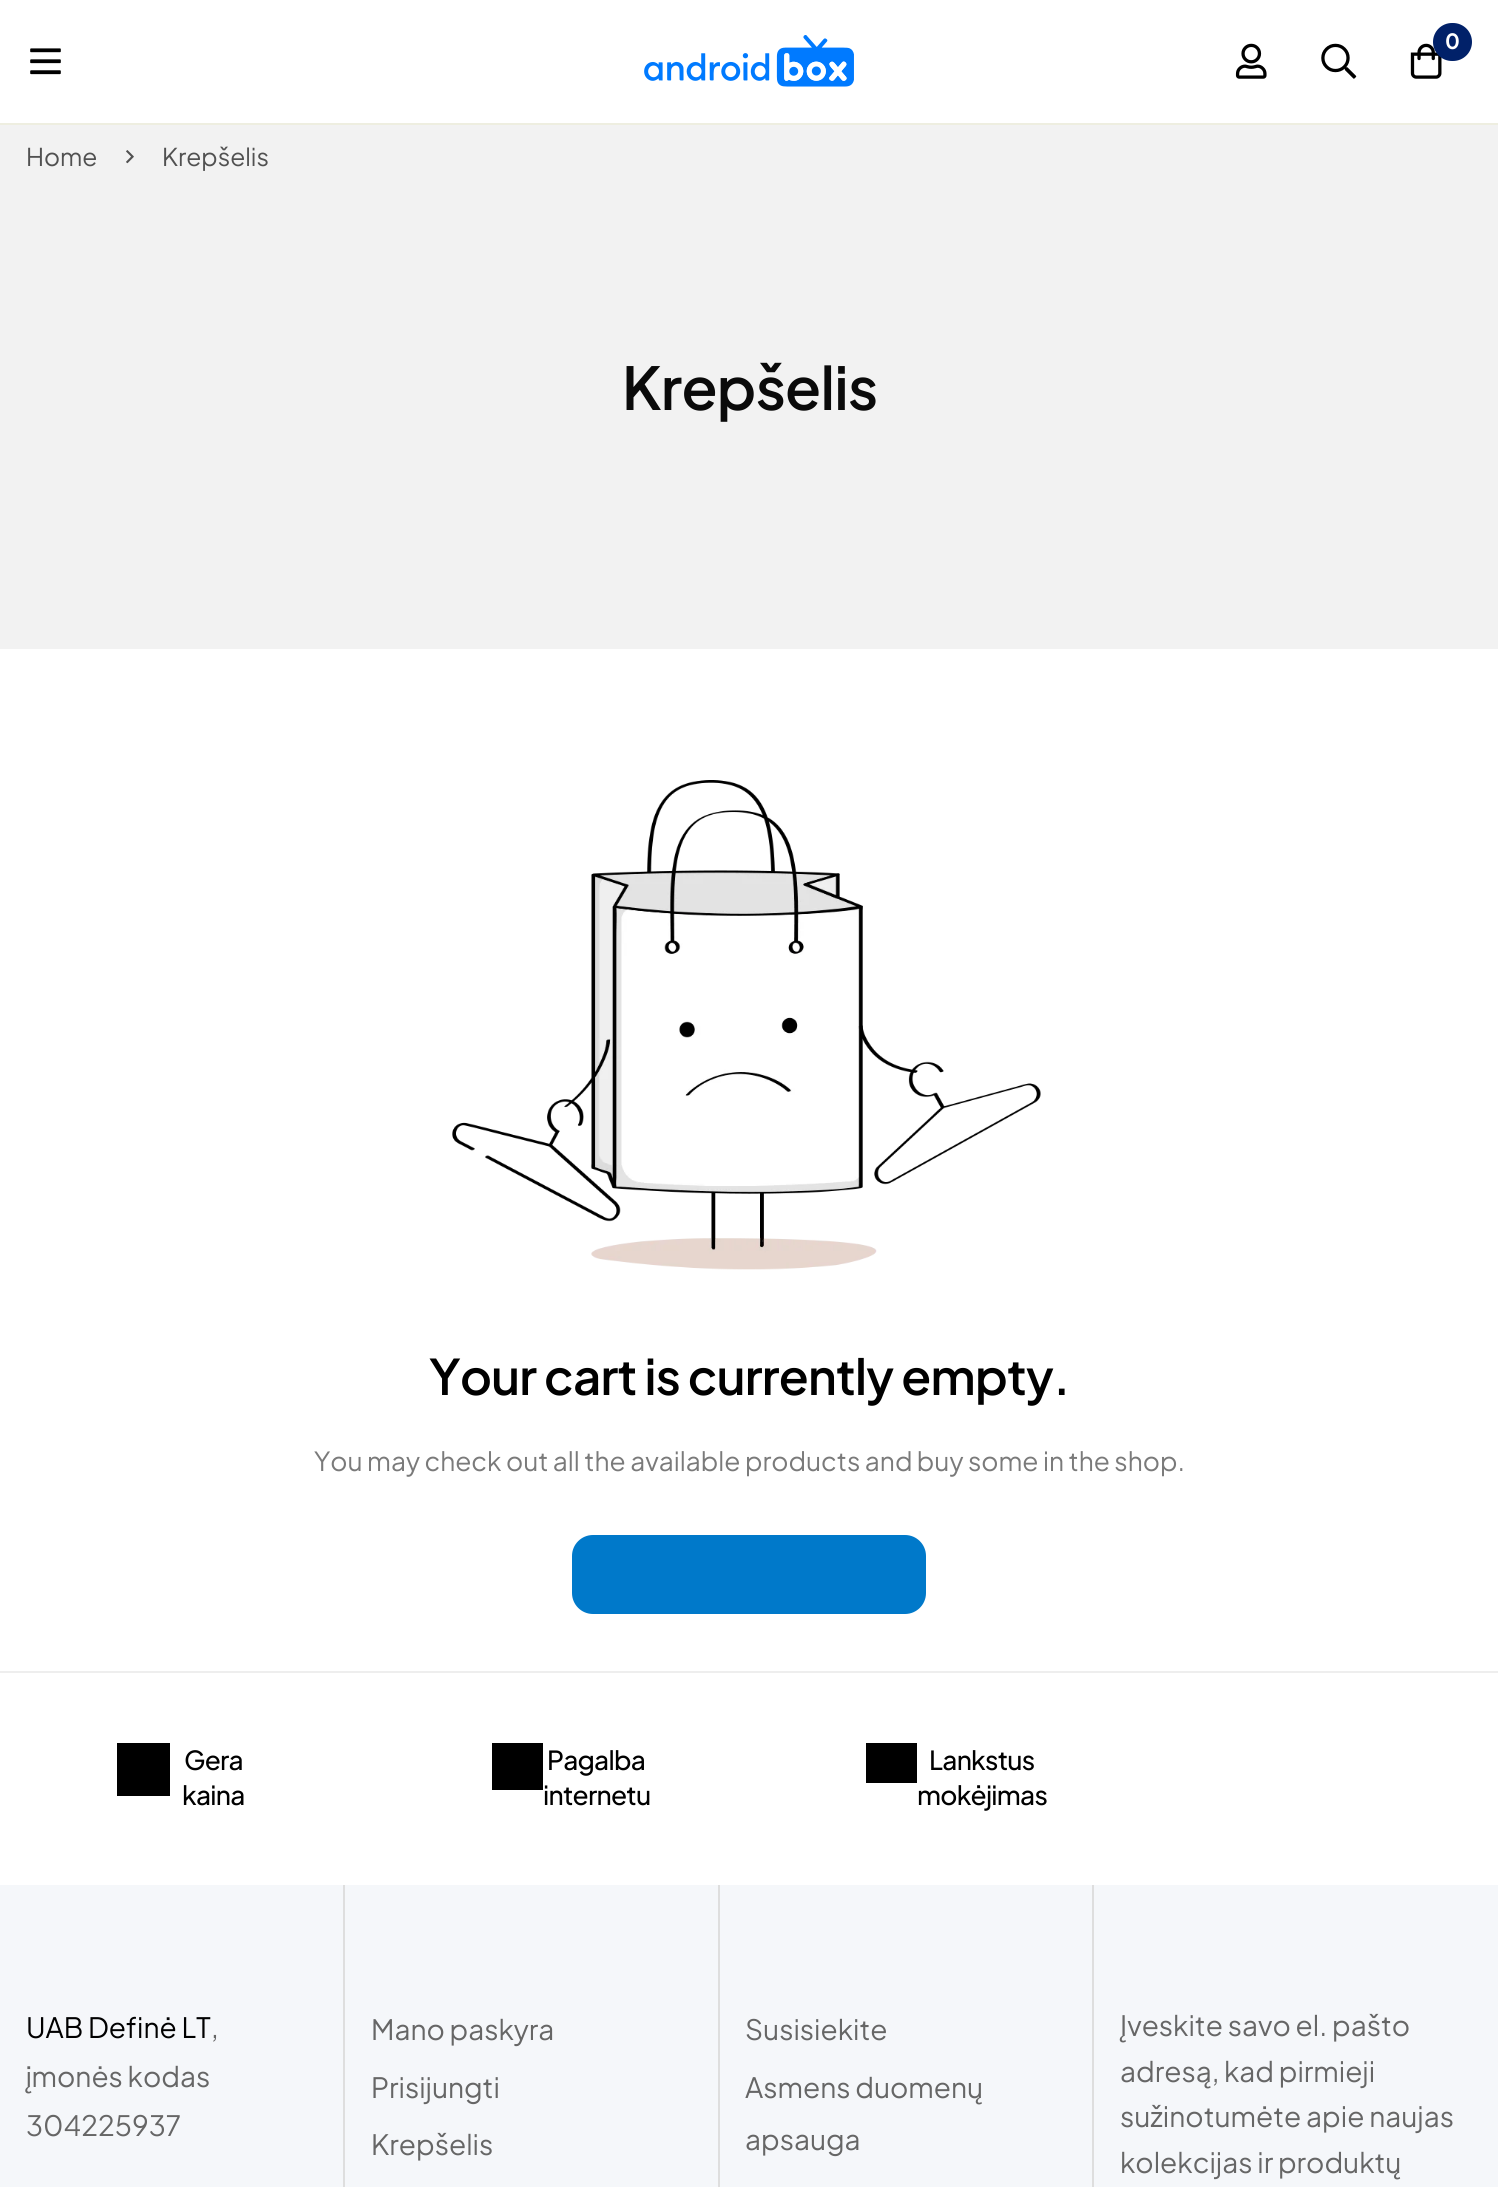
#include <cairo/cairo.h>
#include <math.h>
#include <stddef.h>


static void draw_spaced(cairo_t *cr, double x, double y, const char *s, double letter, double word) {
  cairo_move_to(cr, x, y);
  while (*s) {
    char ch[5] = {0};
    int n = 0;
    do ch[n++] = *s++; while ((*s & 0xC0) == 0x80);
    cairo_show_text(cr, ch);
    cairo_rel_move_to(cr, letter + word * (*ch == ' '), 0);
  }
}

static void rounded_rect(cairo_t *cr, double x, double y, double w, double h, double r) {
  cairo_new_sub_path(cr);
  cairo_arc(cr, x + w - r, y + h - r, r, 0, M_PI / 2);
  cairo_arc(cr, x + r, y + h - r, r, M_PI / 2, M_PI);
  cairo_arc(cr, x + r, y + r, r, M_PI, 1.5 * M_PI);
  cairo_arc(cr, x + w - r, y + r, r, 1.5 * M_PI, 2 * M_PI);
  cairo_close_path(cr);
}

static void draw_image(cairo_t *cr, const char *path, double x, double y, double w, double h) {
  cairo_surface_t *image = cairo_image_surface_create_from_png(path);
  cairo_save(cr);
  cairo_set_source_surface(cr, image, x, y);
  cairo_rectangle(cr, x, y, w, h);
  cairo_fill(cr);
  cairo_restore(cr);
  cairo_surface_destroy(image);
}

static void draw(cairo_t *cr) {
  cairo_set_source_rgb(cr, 1, 1, 1);
  cairo_paint(cr);
  cairo_set_source_rgb(cr, 238 / 255.0, 238 / 255.0, 224 / 255.0);
  cairo_rectangle(cr, 0, 123, 1498, 2);
  cairo_fill(cr);
  draw_image(cr, "images/1.png", 30, 48, 31, 27);
  draw_image(cr, "images/2.png", 644, 35, 210, 52);
  draw_image(cr, "images/3.png", 1235, 43, 32, 36);
  draw_image(cr, "images/4.png", 1321, 43, 36, 36);
  draw_image(cr, "images/5.png", 1410, 43, 32, 36);
  cairo_set_source_rgb(cr, 1 / 255.0, 33 / 255.0, 105 / 255.0);
  rounded_rect(cr, 1433, 23, 39, 38, 19);
  cairo_fill(cr);
  cairo_set_source_rgb(cr, 242 / 255.0, 242 / 255.0, 242 / 255.0);
  cairo_rectangle(cr, 0, 125, 1498, 524);
  cairo_fill(cr);
  draw_image(cr, "images/6.png", 126, 150, 8, 14);
  draw_image(cr, "images/7.png", 452, 780, 589, 490);
  cairo_set_source_rgb(cr, 0, 121 / 255.0, 202 / 255.0);
  rounded_rect(cr, 572, 1535, 354, 79, 21);
  cairo_fill(cr);
  cairo_set_source_rgb(cr, 238 / 255.0, 238 / 255.0, 238 / 255.0);
  cairo_rectangle(cr, 0, 1671, 1498, 2);
  cairo_fill(cr);
  cairo_set_source_rgb(cr, 0, 0, 0);
  cairo_rectangle(cr, 117, 1743, 53, 53);
  cairo_fill(cr);
  cairo_rectangle(cr, 492, 1743, 51, 47);
  cairo_fill(cr);
  cairo_rectangle(cr, 866, 1743, 51, 40);
  cairo_fill(cr);
  cairo_set_source_rgb(cr, 245 / 255.0, 247 / 255.0, 250 / 255.0);
  cairo_rectangle(cr, 0, 1885, 1498, 302);
  cairo_fill(cr);
  cairo_set_source_rgb(cr, 222 / 255.0, 222 / 255.0, 222 / 255.0);
  cairo_rectangle(cr, 343, 1885, 2, 302);
  cairo_fill(cr);
  cairo_rectangle(cr, 718, 1885, 2, 302);
  cairo_fill(cr);
  cairo_rectangle(cr, 1092, 1885, 2, 302);
  cairo_fill(cr);
  cairo_select_font_face(cr, "Plus Jakarta Sans", CAIRO_FONT_SLANT_NORMAL, CAIRO_FONT_WEIGHT_BOLD);
  cairo_set_font_size(cr, 21);
  cairo_set_source_rgb(cr, 1, 1, 1);
  cairo_move_to(cr, 1445, 49);
  cairo_show_text(cr, "0");
  cairo_select_font_face(cr, "Plus Jakarta Sans", CAIRO_FONT_SLANT_NORMAL, CAIRO_FONT_WEIGHT_NORMAL);
  cairo_set_font_size(cr, 24.5);
  cairo_set_source_rgb(cr, 81 / 255.0, 81 / 255.0, 81 / 255.0);
  cairo_move_to(cr, 26, 166);
  cairo_show_text(cr, "Home");
  cairo_move_to(cr, 162, 166);
  cairo_show_text(cr, "Krepšelis");
  cairo_select_font_face(cr, "Plus Jakarta Sans SemiBold", CAIRO_FONT_SLANT_NORMAL, CAIRO_FONT_WEIGHT_NORMAL);
  cairo_set_font_size(cr, 59);
  cairo_set_source_rgb(cr, 10 / 255.0, 10 / 255.0, 10 / 255.0);
  draw_spaced(cr, 622, 410, "Krepšelis", -0.75, 0);
  cairo_set_font_size(cr, 49);
  cairo_set_source_rgb(cr, 0, 0, 0);
  draw_spaced(cr, 429, 1395, "Your cart is currently empty.", -0.75, 0);
  cairo_select_font_face(cr, "Plus Jakarta Sans", CAIRO_FONT_SLANT_NORMAL, CAIRO_FONT_WEIGHT_NORMAL);
  cairo_set_font_size(cr, 26.25);
  cairo_set_source_rgb(cr, 122 / 255.0, 122 / 255.0, 122 / 255.0);
  cairo_move_to(cr, 314, 1471);
  cairo_show_text(cr, "You may check out all the available products and buy some in the shop.");
  cairo_select_font_face(cr, "Plus Jakarta Sans Medium", CAIRO_FONT_SLANT_NORMAL, CAIRO_FONT_WEIGHT_NORMAL);
  cairo_set_source_rgb(cr, 0, 0, 0);
  draw_spaced(cr, 184, 1770, "Gera", -0.75, 0);
  draw_spaced(cr, 182, 1805, "kaina", -0.75, 0);
  draw_spaced(cr, 547, 1770, "Pagalba", -0.75, 0);
  draw_spaced(cr, 543, 1805, "internetu", -0.75, 0);
  draw_spaced(cr, 929, 1770, "Lankstus", -0.75, 0);
  draw_spaced(cr, 917, 1805, "mokėjimas", -0.75, 0);
  cairo_select_font_face(cr, "Plus Jakarta Sans", CAIRO_FONT_SLANT_NORMAL, CAIRO_FONT_WEIGHT_NORMAL);
  cairo_set_font_size(cr, 28);
  cairo_move_to(cr, 26, 2038);
  cairo_show_text(cr, "UAB Definė LT");
  cairo_set_source_rgb(cr, 102 / 255.0, 102 / 255.0, 102 / 255.0);
  cairo_move_to(cr, 211, 2038);
  cairo_show_text(cr, ",");
  cairo_move_to(cr, 26, 2087);
  cairo_show_text(cr, "įmonės kodas");
  cairo_move_to(cr, 26, 2136);
  cairo_show_text(cr, "304225937");
  cairo_move_to(cr, 371, 2040);
  cairo_show_text(cr, "Mano paskyra");
  cairo_move_to(cr, 371, 2098);
  cairo_show_text(cr, "Prisijungti");
  cairo_move_to(cr, 371, 2155);
  cairo_show_text(cr, "Krepšelis");
  cairo_move_to(cr, 745, 2040);
  cairo_show_text(cr, "Susisiekite");
  cairo_move_to(cr, 745, 2098);
  cairo_show_text(cr, "Asmens duomenų");
  cairo_move_to(cr, 745, 2150);
  cairo_show_text(cr, "apsauga");
  cairo_move_to(cr, 1120, 2036);
  cairo_show_text(cr, "Įveskite savo el. pašto");
  cairo_move_to(cr, 1120, 2082);
  cairo_show_text(cr, "adresą, kad pirmieji");
  cairo_move_to(cr, 1120, 2127);
  cairo_show_text(cr, "sužinotumėte apie naujas");
  cairo_move_to(cr, 1120, 2173);
  cairo_show_text(cr, "kolekcijas ir produktų");
}

int main(void) {
  cairo_surface_t *surface = cairo_image_surface_create(CAIRO_FORMAT_RGB24, 1498, 2187);
  cairo_t *cr = cairo_create(surface);
  cairo_font_options_t *options = cairo_font_options_create();
  cairo_font_options_set_hint_metrics(options, CAIRO_HINT_METRICS_OFF);
  cairo_font_options_set_hint_style(options, CAIRO_HINT_STYLE_NONE);
  cairo_set_font_options(cr, options);
  cairo_set_miter_limit(cr, 4);
  draw(cr);
  cairo_surface_write_to_png(surface, "out.png");
  cairo_font_options_destroy(options);
  cairo_destroy(cr);
  cairo_surface_destroy(surface);
  return 0;
}
